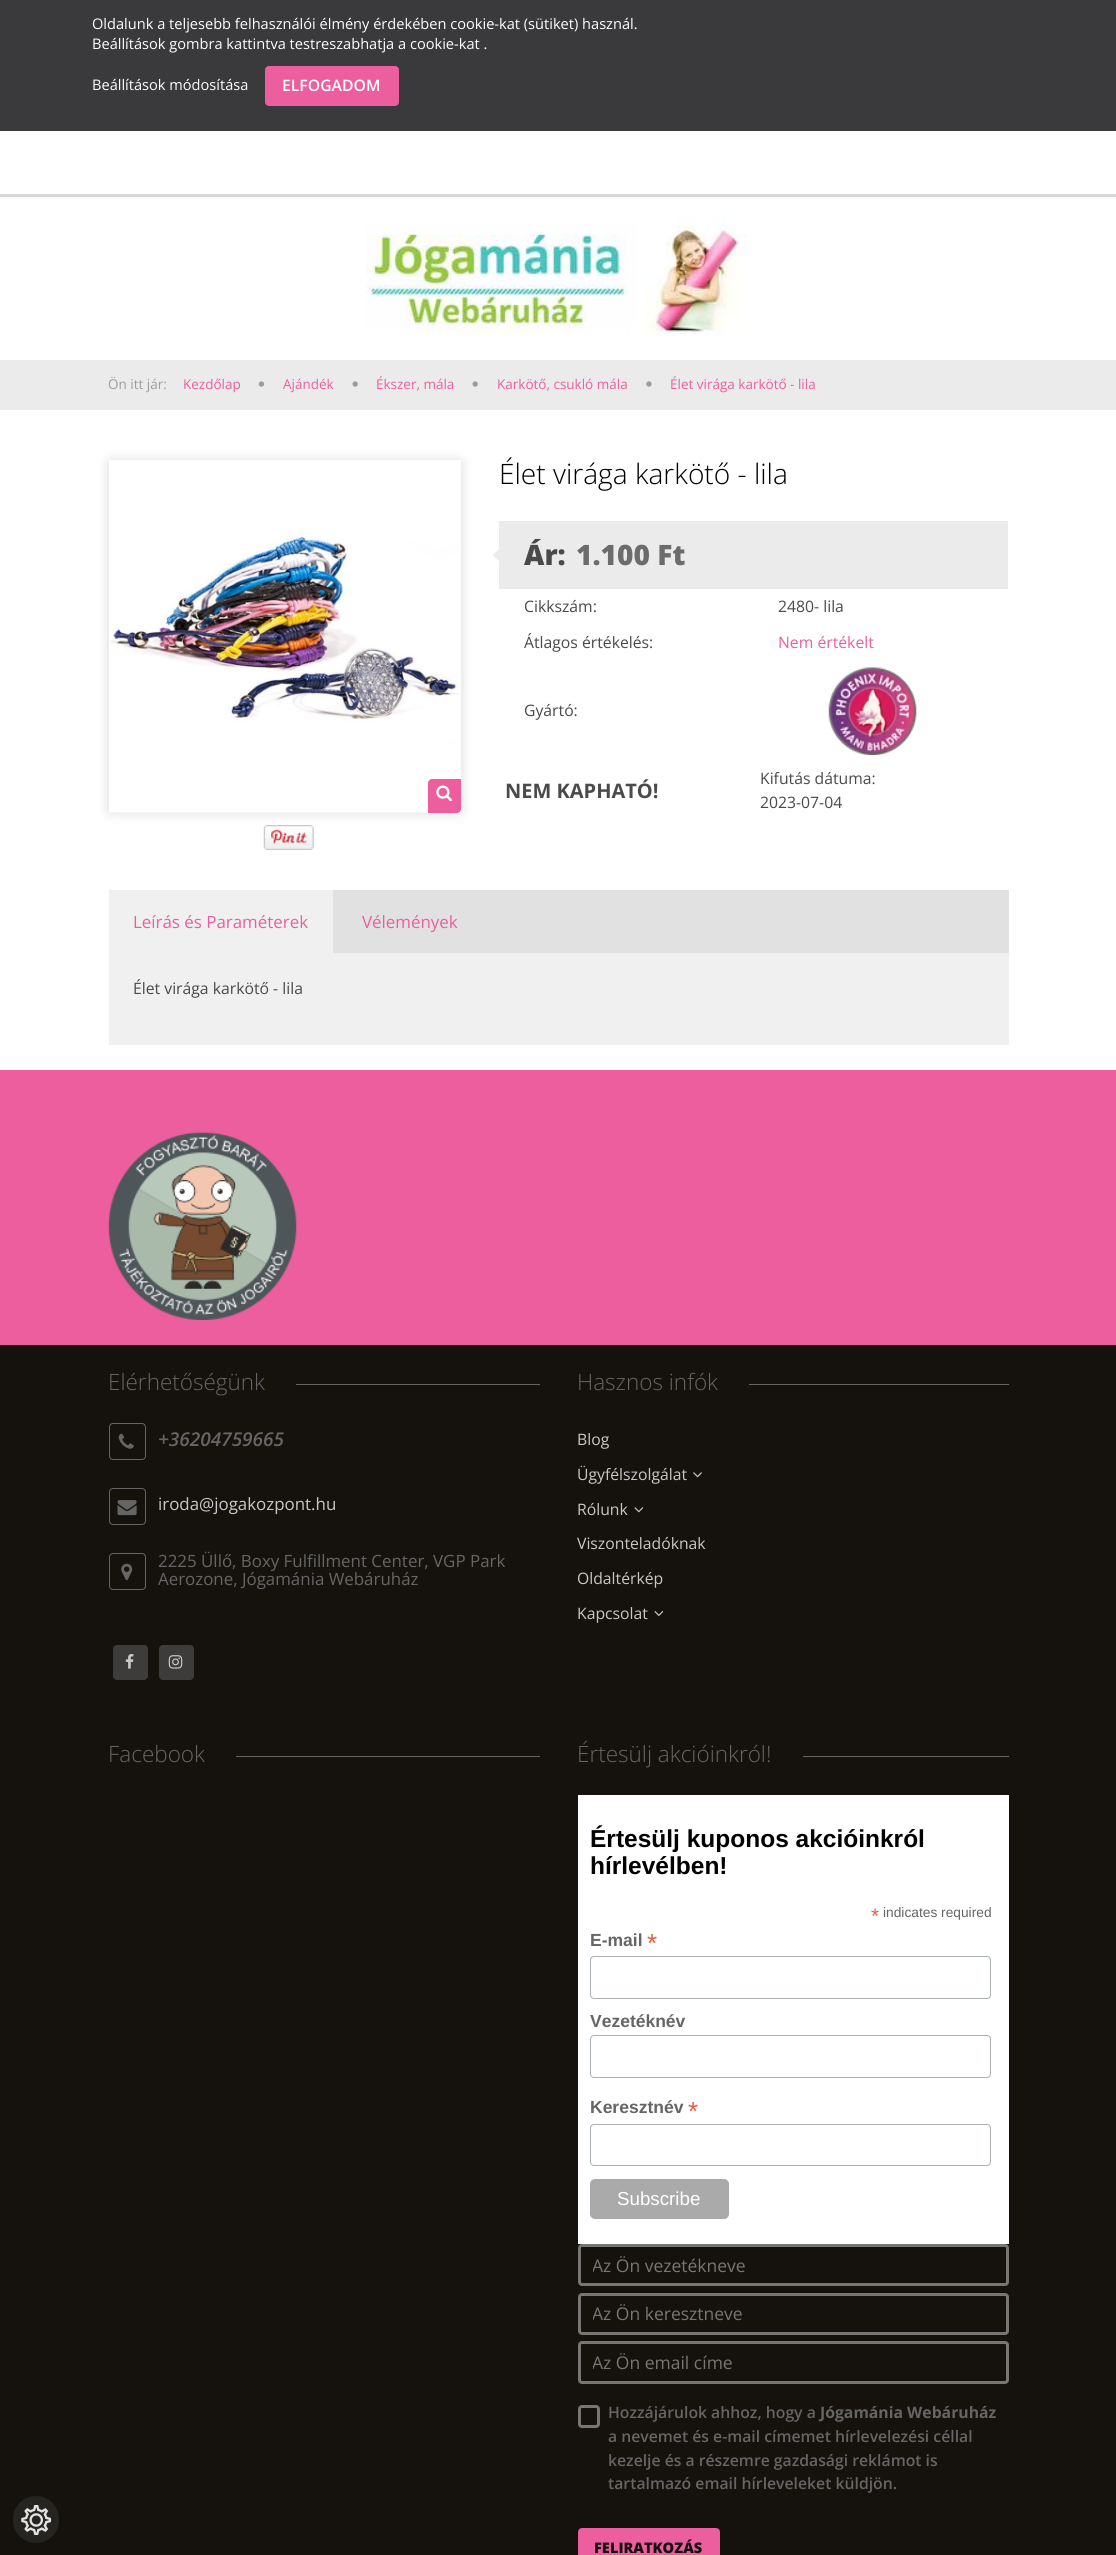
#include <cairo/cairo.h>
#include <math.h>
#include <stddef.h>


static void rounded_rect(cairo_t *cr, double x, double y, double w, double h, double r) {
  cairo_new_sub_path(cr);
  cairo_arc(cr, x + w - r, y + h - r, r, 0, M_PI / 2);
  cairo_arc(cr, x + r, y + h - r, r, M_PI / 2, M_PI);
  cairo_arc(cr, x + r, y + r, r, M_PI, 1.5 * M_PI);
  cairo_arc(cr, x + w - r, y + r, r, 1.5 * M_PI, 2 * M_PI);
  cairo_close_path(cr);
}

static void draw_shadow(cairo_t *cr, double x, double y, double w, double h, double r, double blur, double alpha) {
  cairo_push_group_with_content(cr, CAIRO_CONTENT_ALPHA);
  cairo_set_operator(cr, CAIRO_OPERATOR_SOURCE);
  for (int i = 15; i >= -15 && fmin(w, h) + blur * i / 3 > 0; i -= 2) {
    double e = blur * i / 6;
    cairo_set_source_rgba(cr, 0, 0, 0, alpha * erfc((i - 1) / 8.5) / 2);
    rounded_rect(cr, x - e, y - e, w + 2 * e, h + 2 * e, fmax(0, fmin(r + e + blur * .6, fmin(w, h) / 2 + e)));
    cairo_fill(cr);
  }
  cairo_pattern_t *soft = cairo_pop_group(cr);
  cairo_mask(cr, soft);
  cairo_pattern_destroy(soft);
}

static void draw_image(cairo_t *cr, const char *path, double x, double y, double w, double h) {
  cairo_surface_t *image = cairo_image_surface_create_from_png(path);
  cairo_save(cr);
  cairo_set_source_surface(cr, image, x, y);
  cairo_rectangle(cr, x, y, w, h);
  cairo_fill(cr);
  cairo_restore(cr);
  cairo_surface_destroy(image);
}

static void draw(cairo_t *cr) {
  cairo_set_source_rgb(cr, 1, 1, 1);
  cairo_paint(cr);
  cairo_set_source_rgb(cr, 58 / 255.0, 57 / 255.0, 59 / 255.0);
  cairo_rectangle(cr, 0, 0, 1116, 131);
  cairo_fill(cr);
  cairo_set_source_rgb(cr, 236 / 255.0, 94 / 255.0, 157 / 255.0);
  rounded_rect(cr, 266.5, 67.5, 131, 37, 2.5);
  cairo_fill_preserve(cr);
  cairo_set_line_width(cr, 3);
  cairo_stroke(cr);
  cairo_set_source_rgb(cr, 21 / 255.0, 18 / 255.0, 14 / 255.0);
  cairo_rectangle(cr, 0, 1345, 1116, 1210);
  cairo_fill(cr);
  cairo_set_source_rgba(cr, 78 / 255.0, 78 / 255.0, 78 / 255.0, 0.3);
  rounded_rect(cr, 13, 2496, 46, 47, 23);
  cairo_fill(cr);
  draw_image(cr, "images/1.png", 21, 2505, 30, 30);
  cairo_set_source_rgb(cr, 215 / 255.0, 215 / 255.0, 215 / 255.0);
  cairo_rectangle(cr, 0, 194, 1116, 3);
  cairo_fill(cr);
  draw_image(cr, "images/2.png", 366, 215, 381, 121);
  cairo_set_source_rgb(cr, 235 / 255.0, 235 / 255.0, 235 / 255.0);
  cairo_rectangle(cr, 0, 360, 1116, 50);
  cairo_fill(cr);
  draw_image(cr, "images/3.png", 258, 381, 6, 6);
  draw_image(cr, "images/4.png", 352, 381, 6, 6);
  draw_image(cr, "images/4.png", 472, 381, 6, 6);
  draw_image(cr, "images/5.png", 646, 381, 6, 6);
  cairo_set_source_rgb(cr, 0, 0, 0);
  draw_shadow(cr, 106, 458, 358, 357, 6, 5, 0.1);
  draw_image(cr, "images/6.png", 109, 460, 352, 353);
  cairo_set_source_rgb(cr, 236 / 255.0, 94 / 255.0, 157 / 255.0);
  cairo_new_path(cr);
  cairo_move_to(cr, 432, 779);
  cairo_line_to(cr, 461, 779);
  cairo_line_to(cr, 461, 809);
  cairo_curve_to(cr, 461, 811, 459, 813, 457, 813);
  cairo_line_to(cr, 428, 813);
  cairo_line_to(cr, 428, 783);
  cairo_curve_to(cr, 428, 781, 430, 779, 432, 779);
  cairo_close_path(cr);
  cairo_fill(cr);
  draw_image(cr, "images/7.png", 436, 785, 16, 17);
  draw_image(cr, "images/8.png", 263, 825, 51, 25);
  cairo_set_source_rgb(cr, 235 / 255.0, 235 / 255.0, 235 / 255.0);
  cairo_rectangle(cr, 499, 521, 509, 68);
  cairo_fill(cr);
  cairo_new_path(cr);
  cairo_move_to(cr, 499, 549);
  cairo_line_to(cr, 499, 561);
  cairo_line_to(cr, 492.5, 555);
  cairo_close_path(cr);
  cairo_fill(cr);
  draw_image(cr, "images/9.png", 828, 667, 89, 88);
  cairo_set_source_rgb(cr, 225 / 255.0, 225 / 255.0, 225 / 255.0);
  cairo_rectangle(cr, 333, 890, 676, 63);
  cairo_fill(cr);
  cairo_set_source_rgb(cr, 240 / 255.0, 240 / 255.0, 240 / 255.0);
  cairo_rectangle(cr, 109, 890, 224, 63);
  cairo_fill(cr);
  cairo_rectangle(cr, 109, 953, 900, 92);
  cairo_fill(cr);
  cairo_set_source_rgb(cr, 236 / 255.0, 94 / 255.0, 157 / 255.0);
  cairo_rectangle(cr, 0, 1070, 1116, 275);
  cairo_fill(cr);
  draw_image(cr, "images/10.png", 108, 1132, 189, 188);
  cairo_set_source_rgb(cr, 101 / 255.0, 101 / 255.0, 101 / 255.0);
  cairo_rectangle(cr, 296, 1384, 244, 1);
  cairo_fill(cr);
  rounded_rect(cr, 109.5, 1423.5, 36, 36, 3.5);
  cairo_set_line_width(cr, 1);
  cairo_stroke(cr);
  draw_image(cr, "images/11.png", 118, 1433, 16, 16);
  rounded_rect(cr, 109.5, 1488.5, 36, 36, 3.5);
  cairo_stroke(cr);
  draw_image(cr, "images/12.png", 117, 1500, 20, 16);
  rounded_rect(cr, 109.5, 1553.5, 36, 36, 3.5);
  cairo_stroke(cr);
  draw_image(cr, "images/13.png", 121, 1563, 12, 18);
  cairo_set_source_rgb(cr, 61 / 255.0, 60 / 255.0, 58 / 255.0);
  rounded_rect(cr, 113, 1645, 35, 35, 4);
  cairo_fill(cr);
  draw_image(cr, "images/14.png", 125, 1654, 9, 15);
  rounded_rect(cr, 159, 1645, 35, 35, 4);
  cairo_fill(cr);
  draw_image(cr, "images/15.png", 168, 1655, 15, 14);
  cairo_set_source_rgb(cr, 101 / 255.0, 101 / 255.0, 101 / 255.0);
  cairo_rectangle(cr, 749, 1384, 260, 1);
  cairo_fill(cr);
  draw_image(cr, "images/16.png", 693, 1472, 9, 6);
  draw_image(cr, "images/17.png", 634, 1507, 10, 6);
  draw_image(cr, "images/18.png", 654, 1611, 10, 6);
  cairo_rectangle(cr, 236, 1756, 304, 1);
  cairo_fill(cr);
  cairo_rectangle(cr, 803, 1756, 206, 1);
  cairo_fill(cr);
  cairo_set_source_rgb(cr, 1, 1, 1);
  cairo_rectangle(cr, 578, 1795, 431, 449);
  cairo_fill(cr);
  rounded_rect(cr, 590.5, 1956.5, 400, 42, 3.5);
  cairo_set_source_rgb(cr, 171 / 255.0, 176 / 255.0, 178 / 255.0);
  cairo_stroke(cr);
  rounded_rect(cr, 590.5, 2035.5, 400, 42, 3.5);
  cairo_stroke(cr);
  rounded_rect(cr, 590.5, 2124.5, 400, 41, 3.5);
  cairo_stroke(cr);
  cairo_set_source_rgb(cr, 170 / 255.0, 170 / 255.0, 170 / 255.0);
  rounded_rect(cr, 590, 2179, 139, 40, 5);
  cairo_fill(cr);
  rounded_rect(cr, 579.5, 2245.5, 428, 39, 2.5);
  cairo_set_source_rgb(cr, 120 / 255.0, 117 / 255.0, 117 / 255.0);
  cairo_set_line_width(cr, 3);
  cairo_stroke(cr);
  rounded_rect(cr, 579.5, 2294.5, 428, 39, 2.5);
  cairo_stroke(cr);
  rounded_rect(cr, 579.5, 2342.5, 428, 40, 2.5);
  cairo_stroke(cr);
  rounded_rect(cr, 579.5, 2406.5, 19, 20, 2.5);
  cairo_stroke(cr);
  cairo_set_source_rgb(cr, 236 / 255.0, 94 / 255.0, 157 / 255.0);
  rounded_rect(cr, 579.5, 2529.5, 139, 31, 2.5);
  cairo_fill_preserve(cr);
  cairo_stroke(cr);
  cairo_select_font_face(cr, "Open Sans", CAIRO_FONT_SLANT_NORMAL, CAIRO_FONT_WEIGHT_NORMAL);
  cairo_set_font_size(cr, 14.6);
  cairo_set_source_rgb(cr, 1, 1, 1);
  cairo_move_to(cr, 92, 29);
  cairo_show_text(cr, "Oldalunk a teljesebb felhasználói élmény érdekében cookie-kat (sütiket) használ.");
  cairo_move_to(cr, 92, 49);
  cairo_show_text(cr, "Beállítások gombra kattintva testreszabhatja a cookie-kat .");
  cairo_move_to(cr, 92, 90);
  cairo_show_text(cr, "Beállítások módosítása");
  cairo_select_font_face(cr, "Open Sans SemiBold", CAIRO_FONT_SLANT_NORMAL, CAIRO_FONT_WEIGHT_NORMAL);
  cairo_set_font_size(cr, 15.75);
  cairo_move_to(cr, 282, 91);
  cairo_show_text(cr, "ELFOGADOM");
  cairo_select_font_face(cr, "Open Sans", CAIRO_FONT_SLANT_NORMAL, CAIRO_FONT_WEIGHT_NORMAL);
  cairo_set_font_size(cr, 13.5);
  cairo_set_source_rgb(cr, 155 / 255.0, 156 / 255.0, 156 / 255.0);
  cairo_move_to(cr, 108, 389);
  cairo_show_text(cr, "Ön itt jár:");
  cairo_set_source_rgb(cr, 236 / 255.0, 94 / 255.0, 157 / 255.0);
  cairo_move_to(cr, 183, 389);
  cairo_show_text(cr, "Kezdőlap");
  cairo_move_to(cr, 283, 389);
  cairo_show_text(cr, "Ajándék");
  cairo_move_to(cr, 376, 389);
  cairo_show_text(cr, "Ékszer, mála");
  cairo_move_to(cr, 497, 389);
  cairo_show_text(cr, "Karkötő, csukló mála");
  cairo_move_to(cr, 670, 389);
  cairo_show_text(cr, "Élet virága karkötő - lila");
  cairo_select_font_face(cr, "Open Sans Light", CAIRO_FONT_SLANT_NORMAL, CAIRO_FONT_WEIGHT_NORMAL);
  cairo_set_font_size(cr, 28.1);
  cairo_set_source_rgb(cr, 0, 0, 0);
  cairo_move_to(cr, 499, 484);
  cairo_show_text(cr, "Élet virága karkötő - lila");
  cairo_select_font_face(cr, "Open Sans ExtraBold", CAIRO_FONT_SLANT_NORMAL, CAIRO_FONT_WEIGHT_NORMAL);
  cairo_set_source_rgb(cr, 74 / 255.0, 74 / 255.0, 74 / 255.0);
  cairo_move_to(cr, 524, 565);
  cairo_show_text(cr, "Ár:");
  cairo_set_source_rgb(cr, 108 / 255.0, 108 / 255.0, 108 / 255.0);
  cairo_move_to(cr, 576, 565);
  cairo_show_text(cr, "1.100 Ft");
  cairo_select_font_face(cr, "Open Sans", CAIRO_FONT_SLANT_NORMAL, CAIRO_FONT_WEIGHT_NORMAL);
  cairo_set_font_size(cr, 15.75);
  cairo_set_source_rgb(cr, 74 / 255.0, 74 / 255.0, 74 / 255.0);
  cairo_move_to(cr, 524, 612);
  cairo_show_text(cr, "Cikkszám:");
  cairo_move_to(cr, 778, 612);
  cairo_show_text(cr, "2480- lila");
  cairo_move_to(cr, 524, 648);
  cairo_show_text(cr, "Átlagos értékelés:");
  cairo_set_source_rgb(cr, 236 / 255.0, 94 / 255.0, 157 / 255.0);
  cairo_move_to(cr, 778, 648);
  cairo_show_text(cr, "Nem értékelt");
  cairo_set_source_rgb(cr, 74 / 255.0, 74 / 255.0, 74 / 255.0);
  cairo_move_to(cr, 524, 716);
  cairo_show_text(cr, "Gyártó:");
  cairo_select_font_face(cr, "Open Sans", CAIRO_FONT_SLANT_NORMAL, CAIRO_FONT_WEIGHT_BOLD);
  cairo_set_font_size(cr, 20);
  cairo_move_to(cr, 505, 798);
  cairo_show_text(cr, "NEM KAPHATÓ!");
  cairo_select_font_face(cr, "Open Sans", CAIRO_FONT_SLANT_NORMAL, CAIRO_FONT_WEIGHT_NORMAL);
  cairo_set_font_size(cr, 15.75);
  cairo_move_to(cr, 760, 784);
  cairo_show_text(cr, "Kifutás dátuma:");
  cairo_move_to(cr, 760, 808);
  cairo_show_text(cr, "2023-07-04");
  cairo_set_font_size(cr, 16.9);
  cairo_set_source_rgb(cr, 236 / 255.0, 94 / 255.0, 157 / 255.0);
  cairo_move_to(cr, 133, 928);
  cairo_show_text(cr, "Leírás és Paraméterek");
  cairo_move_to(cr, 362, 928);
  cairo_show_text(cr, "Vélemények");
  cairo_set_font_size(cr, 15.75);
  cairo_set_source_rgb(cr, 74 / 255.0, 74 / 255.0, 74 / 255.0);
  cairo_move_to(cr, 133, 994);
  cairo_show_text(cr, "Élet virága karkötő - lila");
  cairo_select_font_face(cr, "Open Sans Light", CAIRO_FONT_SLANT_NORMAL, CAIRO_FONT_WEIGHT_NORMAL);
  cairo_set_font_size(cr, 22.5);
  cairo_set_source_rgb(cr, 101 / 255.0, 101 / 255.0, 101 / 255.0);
  cairo_move_to(cr, 108, 1390);
  cairo_show_text(cr, "Elérhetőségünk");
  cairo_select_font_face(cr, "Open Sans SemiBold", CAIRO_FONT_SLANT_ITALIC, CAIRO_FONT_WEIGHT_NORMAL);
  cairo_set_font_size(cr, 19);
  cairo_move_to(cr, 158, 1446);
  cairo_show_text(cr, "+36204759665");
  cairo_select_font_face(cr, "Open Sans", CAIRO_FONT_SLANT_NORMAL, CAIRO_FONT_WEIGHT_NORMAL);
  cairo_set_font_size(cr, 16.9);
  cairo_set_source_rgb(cr, 200 / 255.0, 200 / 255.0, 200 / 255.0);
  cairo_move_to(cr, 158, 1510);
  cairo_show_text(cr, "iroda@jogakozpont.hu");
  cairo_set_source_rgb(cr, 101 / 255.0, 101 / 255.0, 101 / 255.0);
  cairo_move_to(cr, 158, 1567);
  cairo_show_text(cr, "2225 Üllő, Boxy Fulfillment Center, VGP Park");
  cairo_move_to(cr, 158, 1585);
  cairo_show_text(cr, "Aerozone, Jógamánia Webáruház");
  cairo_select_font_face(cr, "Open Sans Light", CAIRO_FONT_SLANT_NORMAL, CAIRO_FONT_WEIGHT_NORMAL);
  cairo_set_font_size(cr, 22.5);
  cairo_move_to(cr, 577, 1390);
  cairo_show_text(cr, "Hasznos infók");
  cairo_select_font_face(cr, "Open Sans", CAIRO_FONT_SLANT_NORMAL, CAIRO_FONT_WEIGHT_NORMAL);
  cairo_set_font_size(cr, 15.75);
  cairo_set_source_rgb(cr, 200 / 255.0, 200 / 255.0, 200 / 255.0);
  cairo_move_to(cr, 577, 1445);
  cairo_show_text(cr, "Blog");
  cairo_move_to(cr, 577, 1480);
  cairo_show_text(cr, "Ügyfélszolgálat");
  cairo_move_to(cr, 577, 1515);
  cairo_show_text(cr, "Rólunk");
  cairo_move_to(cr, 577, 1549);
  cairo_show_text(cr, "Viszonteladóknak");
  cairo_move_to(cr, 577, 1584);
  cairo_show_text(cr, "Oldaltérkép");
  cairo_move_to(cr, 577, 1619);
  cairo_show_text(cr, "Kapcsolat");
  cairo_select_font_face(cr, "Open Sans Light", CAIRO_FONT_SLANT_NORMAL, CAIRO_FONT_WEIGHT_NORMAL);
  cairo_set_font_size(cr, 22.5);
  cairo_set_source_rgb(cr, 101 / 255.0, 101 / 255.0, 101 / 255.0);
  cairo_move_to(cr, 108, 1762);
  cairo_show_text(cr, "Facebook");
  cairo_move_to(cr, 577, 1762);
  cairo_show_text(cr, "Értesülj akcióinkról!");
  cairo_select_font_face(cr, "Liberation Sans", CAIRO_FONT_SLANT_NORMAL, CAIRO_FONT_WEIGHT_BOLD);
  cairo_set_font_size(cr, 24.5);
  cairo_set_source_rgb(cr, 0, 0, 0);
  cairo_move_to(cr, 590, 1847);
  cairo_show_text(cr, "Értesülj kuponos akcióinkról");
  cairo_move_to(cr, 590, 1874);
  cairo_show_text(cr, "hírlevélben!");
  cairo_select_font_face(cr, "Liberation Sans", CAIRO_FONT_SLANT_NORMAL, CAIRO_FONT_WEIGHT_NORMAL);
  cairo_set_font_size(cr, 21);
  cairo_set_source_rgb(cr, 232 / 255.0, 92 / 255.0, 65 / 255.0);
  cairo_move_to(cr, 871, 1923);
  cairo_show_text(cr, "*");
  cairo_set_font_size(cr, 13.75);
  cairo_set_source_rgb(cr, 101 / 255.0, 101 / 255.0, 101 / 255.0);
  cairo_move_to(cr, 883, 1917);
  cairo_show_text(cr, "indicates required");
  cairo_select_font_face(cr, "Liberation Sans", CAIRO_FONT_SLANT_NORMAL, CAIRO_FONT_WEIGHT_BOLD);
  cairo_set_font_size(cr, 17.5);
  cairo_move_to(cr, 590, 1946);
  cairo_show_text(cr, "E-mail");
  cairo_select_font_face(cr, "Liberation Sans", CAIRO_FONT_SLANT_NORMAL, CAIRO_FONT_WEIGHT_NORMAL);
  cairo_set_font_size(cr, 26);
  cairo_set_source_rgb(cr, 232 / 255.0, 92 / 255.0, 65 / 255.0);
  cairo_move_to(cr, 647, 1952);
  cairo_show_text(cr, "*");
  cairo_select_font_face(cr, "Liberation Sans", CAIRO_FONT_SLANT_NORMAL, CAIRO_FONT_WEIGHT_BOLD);
  cairo_set_font_size(cr, 17.5);
  cairo_set_source_rgb(cr, 101 / 255.0, 101 / 255.0, 101 / 255.0);
  cairo_move_to(cr, 590, 2027);
  cairo_show_text(cr, "Vezetéknév");
  cairo_move_to(cr, 590, 2113);
  cairo_show_text(cr, "Keresztnév");
  cairo_select_font_face(cr, "Liberation Sans", CAIRO_FONT_SLANT_NORMAL, CAIRO_FONT_WEIGHT_NORMAL);
  cairo_set_font_size(cr, 26);
  cairo_set_source_rgb(cr, 232 / 255.0, 92 / 255.0, 65 / 255.0);
  cairo_move_to(cr, 688, 2120);
  cairo_show_text(cr, "*");
  cairo_set_font_size(cr, 18.75);
  cairo_set_source_rgb(cr, 1, 1, 1);
  cairo_move_to(cr, 617, 2205);
  cairo_show_text(cr, "Subscribe");
  cairo_save(cr);
  cairo_rectangle(cr, 593, 2253, 411, 23);
  cairo_clip(cr);
  cairo_select_font_face(cr, "Open Sans", CAIRO_FONT_SLANT_NORMAL, CAIRO_FONT_WEIGHT_NORMAL);
  cairo_set_font_size(cr, 17.5);
  cairo_set_source_rgb(cr, 120 / 255.0, 117 / 255.0, 117 / 255.0);
  cairo_move_to(cr, 592, 2272);
  cairo_show_text(cr, "Az Ön vezetékneve");
  cairo_restore(cr);
  cairo_save(cr);
  cairo_rectangle(cr, 593, 2301, 411, 24);
  cairo_clip(cr);
  cairo_select_font_face(cr, "Open Sans", CAIRO_FONT_SLANT_NORMAL, CAIRO_FONT_WEIGHT_NORMAL);
  cairo_set_font_size(cr, 17.5);
  cairo_set_source_rgb(cr, 120 / 255.0, 117 / 255.0, 117 / 255.0);
  cairo_move_to(cr, 592, 2320);
  cairo_show_text(cr, "Az Ön keresztneve");
  cairo_restore(cr);
  cairo_save(cr);
  cairo_rectangle(cr, 593, 2350, 411, 24);
  cairo_clip(cr);
  cairo_select_font_face(cr, "Open Sans", CAIRO_FONT_SLANT_NORMAL, CAIRO_FONT_WEIGHT_NORMAL);
  cairo_set_font_size(cr, 17.5);
  cairo_set_source_rgb(cr, 120 / 255.0, 117 / 255.0, 117 / 255.0);
  cairo_move_to(cr, 592, 2369);
  cairo_show_text(cr, "Az Ön email címe");
  cairo_restore(cr);
  cairo_select_font_face(cr, "Open Sans SemiBold", CAIRO_FONT_SLANT_NORMAL, CAIRO_FONT_WEIGHT_NORMAL);
  cairo_set_font_size(cr, 15.75);
  cairo_set_source_rgb(cr, 101 / 255.0, 101 / 255.0, 101 / 255.0);
  cairo_move_to(cr, 608, 2418);
  cairo_show_text(cr, "Hozzájárulok ahhoz, hogy a");
  cairo_select_font_face(cr, "Open Sans", CAIRO_FONT_SLANT_NORMAL, CAIRO_FONT_WEIGHT_BOLD);
  cairo_move_to(cr, 820, 2418);
  cairo_show_text(cr, "Jógamánia Webáruház");
  cairo_select_font_face(cr, "Open Sans SemiBold", CAIRO_FONT_SLANT_NORMAL, CAIRO_FONT_WEIGHT_NORMAL);
  cairo_move_to(cr, 608, 2442);
  cairo_show_text(cr, "a nevemet és e-mail címemet hírlevelezési céllal");
  cairo_move_to(cr, 608, 2466);
  cairo_show_text(cr, "kezelje és a részemre gazdasági reklámot is");
  cairo_move_to(cr, 608, 2489);
  cairo_show_text(cr, "tartalmazó email hírleveleket küldjön.");
  cairo_select_font_face(cr, "Open Sans ExtraBold", CAIRO_FONT_SLANT_NORMAL, CAIRO_FONT_WEIGHT_NORMAL);
  cairo_set_font_size(cr, 14.6);
  cairo_set_source_rgb(cr, 21 / 255.0, 18 / 255.0, 14 / 255.0);
  cairo_move_to(cr, 594, 2553);
  cairo_show_text(cr, "FELIRATKOZÁS");
}

int main(void) {
  cairo_surface_t *surface = cairo_image_surface_create(CAIRO_FORMAT_RGB24, 1116, 2555);
  cairo_t *cr = cairo_create(surface);
  cairo_font_options_t *options = cairo_font_options_create();
  cairo_font_options_set_hint_metrics(options, CAIRO_HINT_METRICS_OFF);
  cairo_font_options_set_hint_style(options, CAIRO_HINT_STYLE_NONE);
  cairo_set_font_options(cr, options);
  cairo_set_miter_limit(cr, 4);
  draw(cr);
  cairo_surface_write_to_png(surface, "out.png");
  cairo_font_options_destroy(options);
  cairo_destroy(cr);
  cairo_surface_destroy(surface);
  return 0;
}
